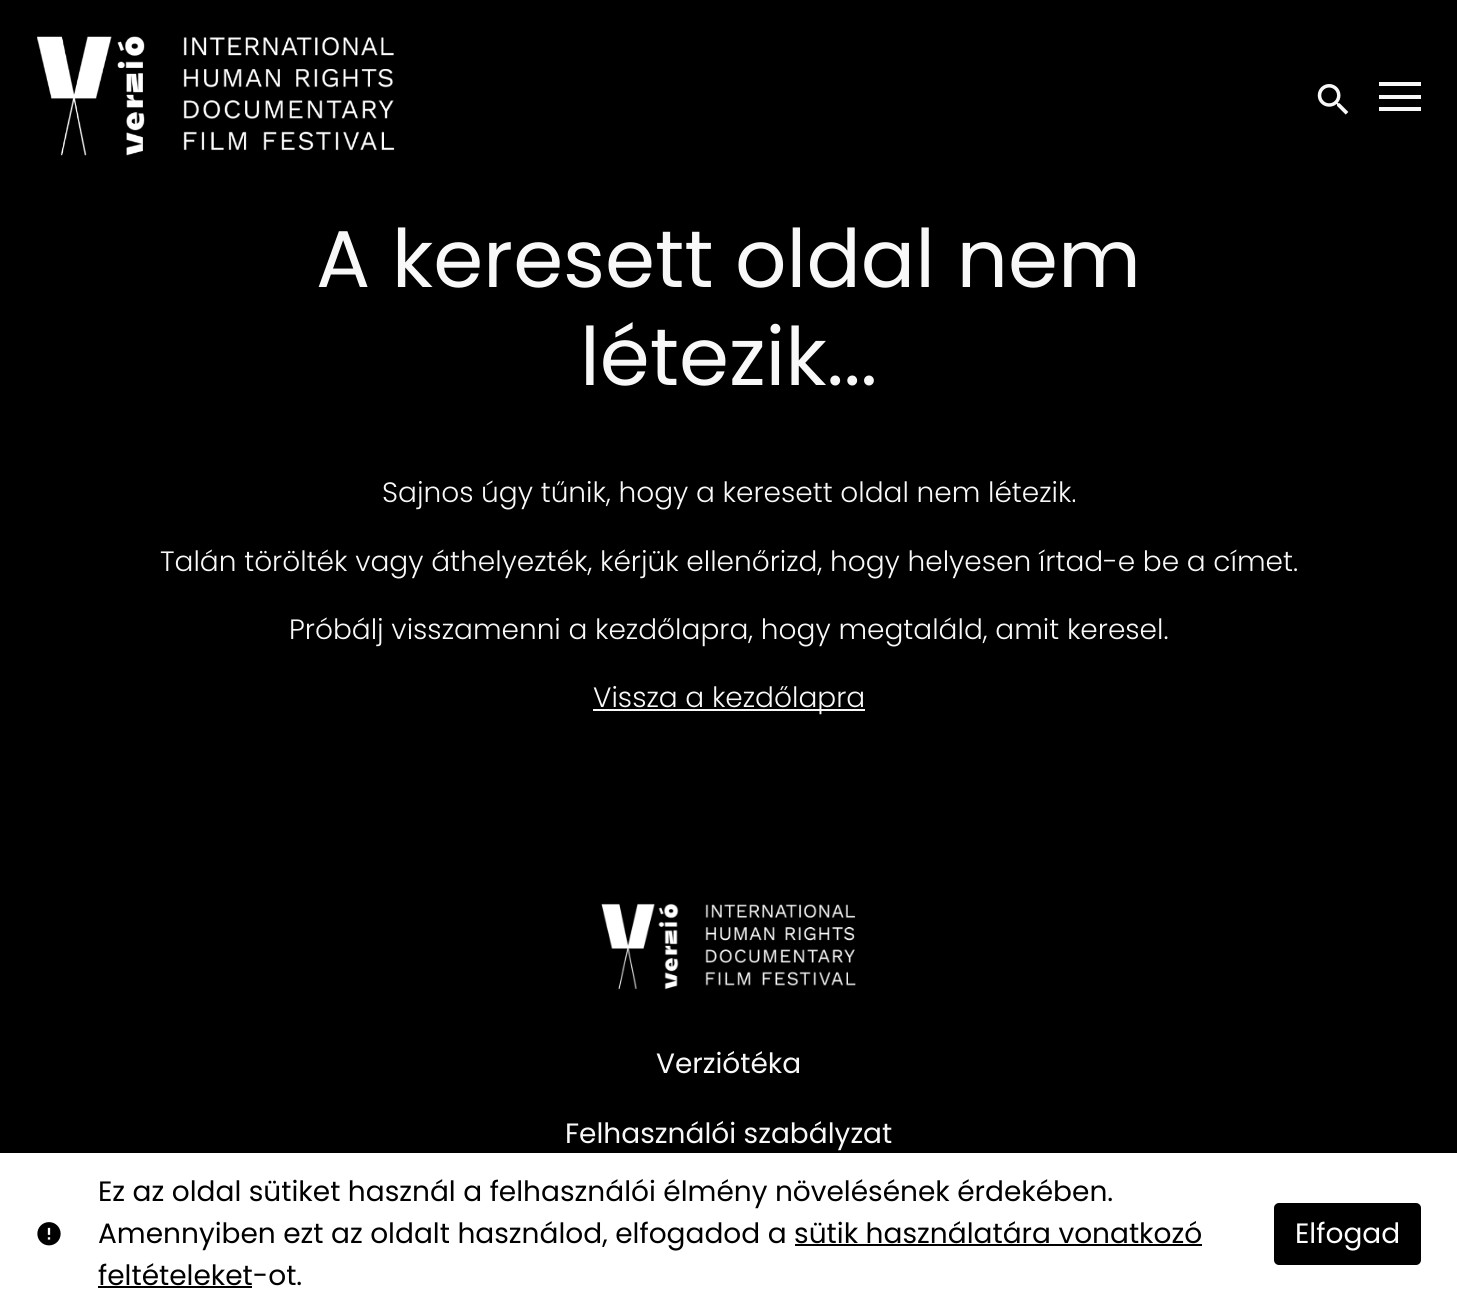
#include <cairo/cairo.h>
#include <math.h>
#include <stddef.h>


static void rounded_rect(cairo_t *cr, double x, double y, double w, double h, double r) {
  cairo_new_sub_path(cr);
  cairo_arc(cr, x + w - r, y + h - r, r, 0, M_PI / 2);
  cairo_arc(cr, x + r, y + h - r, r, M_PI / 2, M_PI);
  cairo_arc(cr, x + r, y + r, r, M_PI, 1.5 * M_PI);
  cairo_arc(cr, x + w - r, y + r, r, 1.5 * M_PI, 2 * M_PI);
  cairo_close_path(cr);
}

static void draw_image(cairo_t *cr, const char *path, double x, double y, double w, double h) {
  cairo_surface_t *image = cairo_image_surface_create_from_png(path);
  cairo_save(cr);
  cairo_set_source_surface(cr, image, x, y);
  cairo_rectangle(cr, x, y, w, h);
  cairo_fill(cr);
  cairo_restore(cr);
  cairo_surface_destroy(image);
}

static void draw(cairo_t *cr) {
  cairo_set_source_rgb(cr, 0, 0, 0);
  cairo_paint(cr);
  draw_image(cr, "images/1.png", 37, 36, 358, 120);
  draw_image(cr, "images/2.png", 1317, 84, 32, 31);
  cairo_set_source_rgb(cr, 248 / 255.0, 248 / 255.0, 248 / 255.0);
  cairo_rectangle(cr, 1379, 82, 42, 4);
  cairo_fill(cr);
  cairo_rectangle(cr, 1379, 95, 42, 4);
  cairo_fill(cr);
  cairo_rectangle(cr, 1379, 107, 42, 4);
  cairo_fill(cr);
  cairo_rectangle(cr, 593, 709, 272, 2);
  cairo_fill(cr);
  draw_image(cr, "images/3.png", 601, 903, 255, 87);
  cairo_set_source_rgb(cr, 1, 1, 1);
  cairo_rectangle(cr, 0, 1153, 1457, 161);
  cairo_fill(cr);
  draw_image(cr, "images/4.png", 37, 1222, 24, 24);
  cairo_set_source_rgb(cr, 0, 0, 0);
  cairo_rectangle(cr, 795, 1244, 407, 2);
  cairo_fill(cr);
  cairo_rectangle(cr, 98, 1286, 154, 2);
  cairo_fill(cr);
  rounded_rect(cr, 1273, 1202, 149, 64, 6);
  cairo_fill_preserve(cr);
  cairo_set_source_rgb(cr, 1, 1, 1);
  cairo_stroke(cr);
  cairo_select_font_face(cr, "Poppins", CAIRO_FONT_SLANT_NORMAL, CAIRO_FONT_WEIGHT_NORMAL);
  cairo_set_font_size(cr, 80.5);
  cairo_set_source_rgb(cr, 248 / 255.0, 248 / 255.0, 248 / 255.0);
  cairo_move_to(cr, 316, 287);
  cairo_show_text(cr, "A keresett oldal nem");
  cairo_move_to(cr, 580, 385);
  cairo_show_text(cr, "létezik...");
  cairo_select_font_face(cr, "Poppins Light", CAIRO_FONT_SLANT_NORMAL, CAIRO_FONT_WEIGHT_NORMAL);
  cairo_set_font_size(cr, 28);
  cairo_move_to(cr, 382, 502);
  cairo_show_text(cr, "Sajnos úgy tűnik, hogy a keresett oldal nem létezik.");
  cairo_move_to(cr, 160, 571);
  cairo_show_text(cr, "Talán törölték vagy áthelyezték, kérjük ellenőrizd, hogy helyesen írtad-e be a címet.");
  cairo_move_to(cr, 289, 639);
  cairo_show_text(cr, "Próbálj visszamenni a kezdőlapra, hogy megtaláld, amit keresel.");
  cairo_move_to(cr, 593, 707);
  cairo_show_text(cr, "Vissza a kezdőlapra");
  cairo_select_font_face(cr, "Poppins", CAIRO_FONT_SLANT_NORMAL, CAIRO_FONT_WEIGHT_NORMAL);
  cairo_move_to(cr, 656, 1073);
  cairo_show_text(cr, "Verziótéka");
  cairo_move_to(cr, 565, 1143);
  cairo_show_text(cr, "Felhasználói szabályzat");
  cairo_set_source_rgb(cr, 0, 0, 0);
  cairo_move_to(cr, 98, 1201);
  cairo_show_text(cr, "Ez az oldal sütiket használ a felhasználói élmény növelésének érdekében.");
  cairo_move_to(cr, 98, 1243);
  cairo_show_text(cr, "Amennyiben ezt az oldalt használod, elfogadod a sütik használatára vonatkozó");
  cairo_move_to(cr, 98, 1285);
  cairo_show_text(cr, "feltételeket-ot.");
  cairo_set_source_rgb(cr, 1, 1, 1);
  cairo_move_to(cr, 1295, 1243);
  cairo_show_text(cr, "Elfogad");
}

int main(void) {
  cairo_surface_t *surface = cairo_image_surface_create(CAIRO_FORMAT_RGB24, 1457, 1314);
  cairo_t *cr = cairo_create(surface);
  cairo_font_options_t *options = cairo_font_options_create();
  cairo_font_options_set_hint_metrics(options, CAIRO_HINT_METRICS_OFF);
  cairo_font_options_set_hint_style(options, CAIRO_HINT_STYLE_NONE);
  cairo_set_font_options(cr, options);
  cairo_set_miter_limit(cr, 4);
  draw(cr);
  cairo_surface_write_to_png(surface, "out.png");
  cairo_font_options_destroy(options);
  cairo_destroy(cr);
  cairo_surface_destroy(surface);
  return 0;
}
